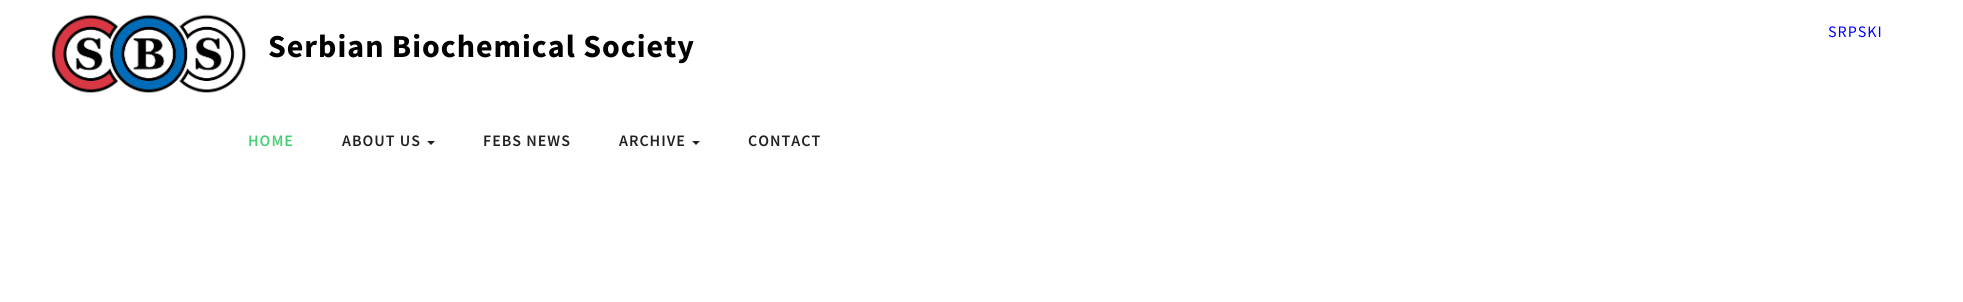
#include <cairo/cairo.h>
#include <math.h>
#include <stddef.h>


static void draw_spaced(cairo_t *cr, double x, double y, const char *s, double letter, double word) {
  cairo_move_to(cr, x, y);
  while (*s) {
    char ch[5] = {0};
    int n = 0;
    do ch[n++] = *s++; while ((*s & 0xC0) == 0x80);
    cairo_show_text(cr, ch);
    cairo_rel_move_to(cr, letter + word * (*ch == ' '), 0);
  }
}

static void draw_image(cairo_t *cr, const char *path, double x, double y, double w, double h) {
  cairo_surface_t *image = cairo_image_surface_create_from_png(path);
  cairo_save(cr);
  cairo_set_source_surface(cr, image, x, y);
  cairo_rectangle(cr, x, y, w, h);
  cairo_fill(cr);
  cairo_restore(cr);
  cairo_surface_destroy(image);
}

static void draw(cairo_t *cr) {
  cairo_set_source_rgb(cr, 1, 1, 1);
  cairo_paint(cr);
  draw_image(cr, "images/1.png", 51, 14, 196, 79);
  cairo_set_source_rgb(cr, 34 / 255.0, 34 / 255.0, 34 / 255.0);
  cairo_new_path(cr);
  cairo_move_to(cr, 427, 141);
  cairo_line_to(cr, 435, 141);
  cairo_line_to(cr, 431, 145);
  cairo_close_path(cr);
  cairo_fill(cr);
  cairo_new_path(cr);
  cairo_move_to(cr, 692, 141);
  cairo_line_to(cr, 700, 141);
  cairo_line_to(cr, 696, 145);
  cairo_close_path(cr);
  cairo_fill(cr);
  cairo_select_font_face(cr, "Source Sans Pro", CAIRO_FONT_SLANT_NORMAL, CAIRO_FONT_WEIGHT_BOLD);
  cairo_set_font_size(cr, 32);
  cairo_set_source_rgb(cr, 0, 0, 0);
  draw_spaced(cr, 268, 57, "Serbian Biochemical Society", 1, 0);
  cairo_select_font_face(cr, "Source Sans Pro", CAIRO_FONT_SLANT_NORMAL, CAIRO_FONT_WEIGHT_NORMAL);
  cairo_set_font_size(cr, 16);
  cairo_set_source_rgb(cr, 0, 0, 1);
  draw_spaced(cr, 1828, 37, "SRPSKI", 1, 0);
  cairo_select_font_face(cr, "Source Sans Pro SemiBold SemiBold", CAIRO_FONT_SLANT_NORMAL, CAIRO_FONT_WEIGHT_NORMAL);
  cairo_set_source_rgb(cr, 71 / 255.0, 207 / 255.0, 115 / 255.0);
  draw_spaced(cr, 248, 146, "HOME", 1, 0);
  cairo_set_source_rgb(cr, 34 / 255.0, 34 / 255.0, 34 / 255.0);
  draw_spaced(cr, 342, 146, "ABOUT US", 1, 0);
  draw_spaced(cr, 483, 146, "FEBS NEWS", 1, 0);
  draw_spaced(cr, 619, 146, "ARCHIVE", 1, 0);
  draw_spaced(cr, 748, 146, "CONTACT", 1, 0);
}

int main(void) {
  cairo_surface_t *surface = cairo_image_surface_create(CAIRO_FORMAT_RGB24, 1963, 302);
  cairo_t *cr = cairo_create(surface);
  cairo_font_options_t *options = cairo_font_options_create();
  cairo_font_options_set_hint_metrics(options, CAIRO_HINT_METRICS_OFF);
  cairo_font_options_set_hint_style(options, CAIRO_HINT_STYLE_NONE);
  cairo_set_font_options(cr, options);
  cairo_set_miter_limit(cr, 4);
  draw(cr);
  cairo_surface_write_to_png(surface, "out.png");
  cairo_font_options_destroy(options);
  cairo_destroy(cr);
  cairo_surface_destroy(surface);
  return 0;
}
